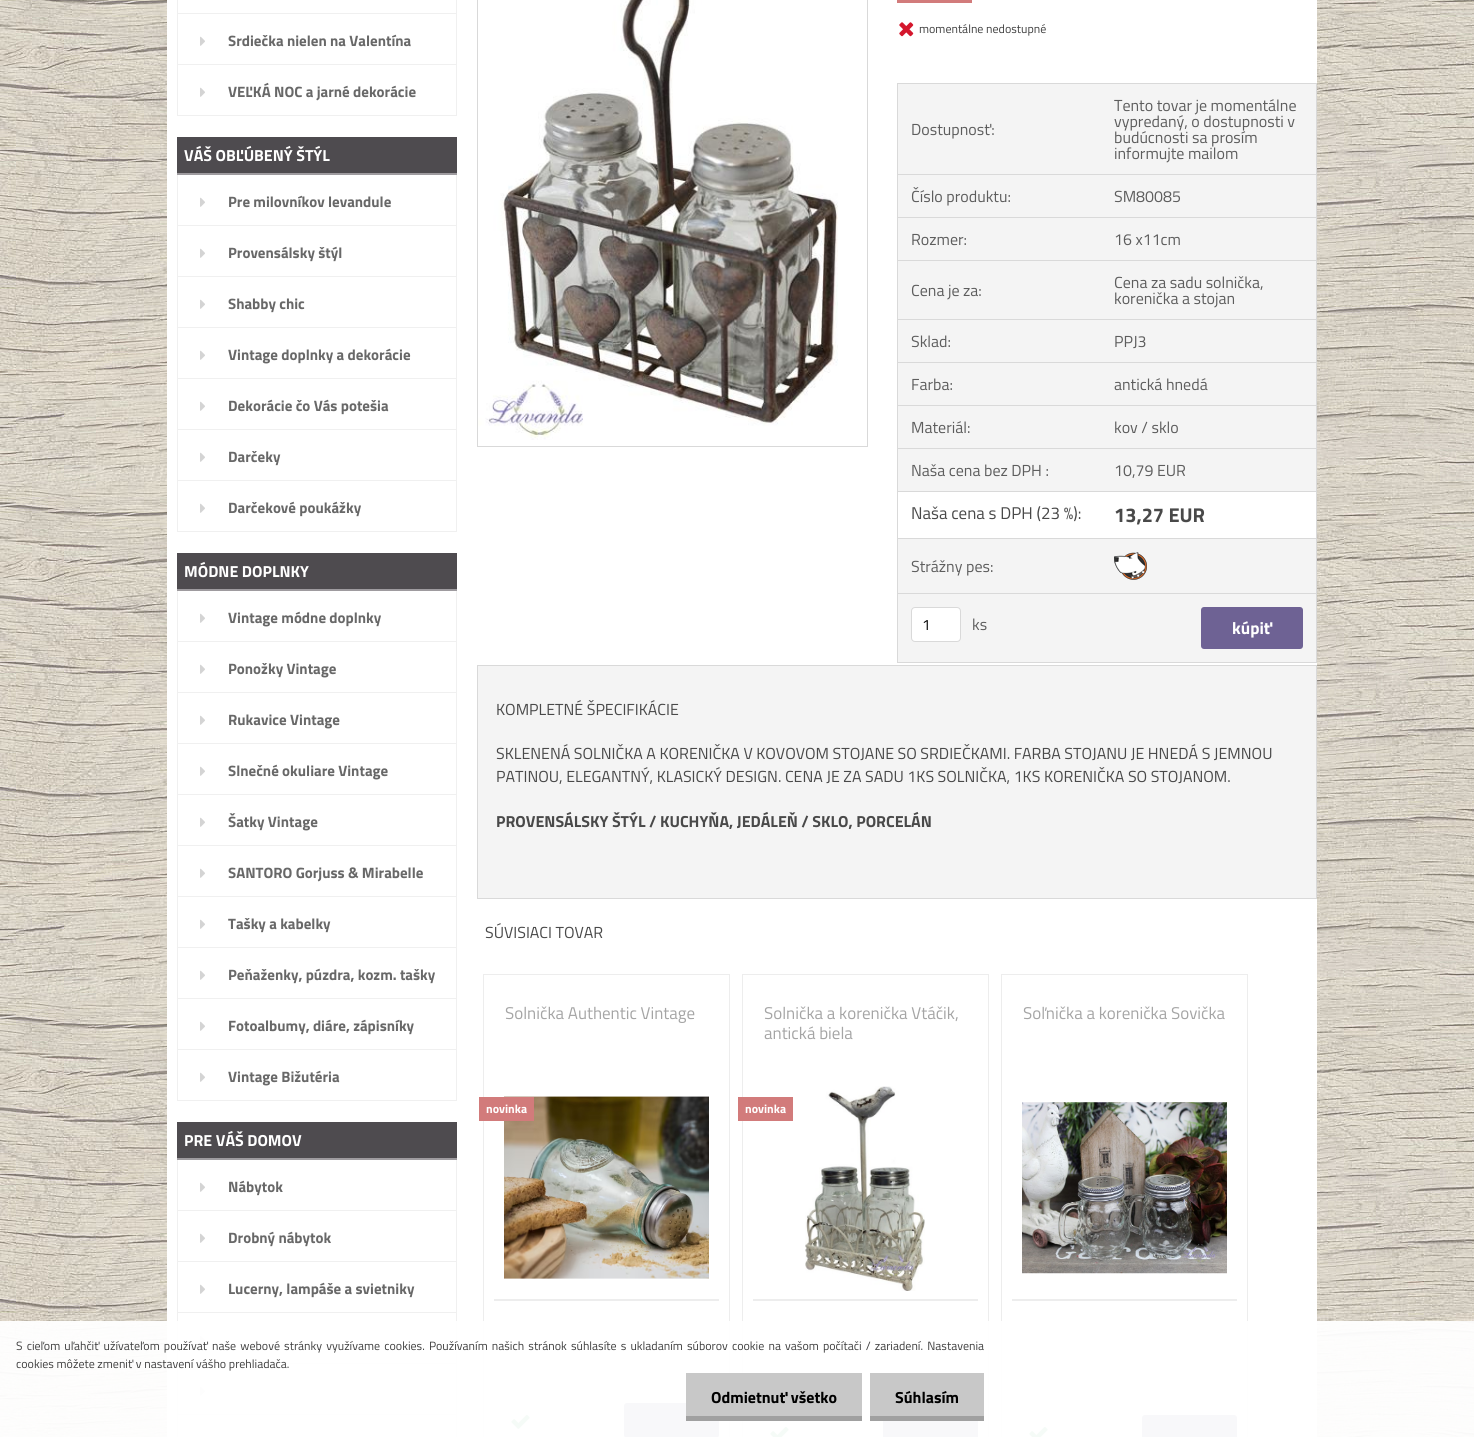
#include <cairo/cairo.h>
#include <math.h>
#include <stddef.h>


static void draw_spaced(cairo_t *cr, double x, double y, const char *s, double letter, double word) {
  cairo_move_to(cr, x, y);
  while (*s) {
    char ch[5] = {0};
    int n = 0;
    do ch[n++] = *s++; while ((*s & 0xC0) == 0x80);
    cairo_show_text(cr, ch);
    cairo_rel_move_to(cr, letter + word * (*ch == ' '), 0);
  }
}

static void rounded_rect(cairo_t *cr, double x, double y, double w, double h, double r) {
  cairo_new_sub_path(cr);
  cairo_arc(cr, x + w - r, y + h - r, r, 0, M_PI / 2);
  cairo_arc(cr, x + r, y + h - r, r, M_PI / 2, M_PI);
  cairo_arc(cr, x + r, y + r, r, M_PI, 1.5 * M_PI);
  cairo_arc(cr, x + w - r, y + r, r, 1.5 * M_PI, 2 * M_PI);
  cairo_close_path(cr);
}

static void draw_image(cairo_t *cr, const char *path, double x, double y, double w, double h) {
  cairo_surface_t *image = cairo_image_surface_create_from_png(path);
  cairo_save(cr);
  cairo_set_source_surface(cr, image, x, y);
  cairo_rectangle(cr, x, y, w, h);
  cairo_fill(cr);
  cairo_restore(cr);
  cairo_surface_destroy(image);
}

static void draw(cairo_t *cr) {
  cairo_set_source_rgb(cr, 1, 1, 1);
  cairo_paint(cr);
  draw_image(cr, "images/1.png", 0, 0, 1474, 1437);
  cairo_set_source_rgb(cr, 1, 1, 1);
  cairo_rectangle(cr, 167, 0, 1150, 1437);
  cairo_fill(cr);
  cairo_set_source_rgb(cr, 240 / 255.0, 240 / 255.0, 240 / 255.0);
  cairo_rectangle(cr, 456, 0, 1, 116);
  cairo_fill(cr);
  cairo_rectangle(cr, 177, 13, 280, 1);
  cairo_fill(cr);
  cairo_rectangle(cr, 177, 0, 1, 14);
  cairo_fill(cr);
  cairo_rectangle(cr, 177, 64, 280, 1);
  cairo_fill(cr);
  cairo_rectangle(cr, 177, 14, 1, 51);
  cairo_fill(cr);
  draw_image(cr, "images/2.png", 200, 36, 5, 10);
  cairo_rectangle(cr, 177, 115, 280, 1);
  cairo_fill(cr);
  cairo_rectangle(cr, 177, 65, 1, 51);
  cairo_fill(cr);
  draw_image(cr, "images/2.png", 200, 87, 5, 10);
  cairo_set_source_rgb(cr, 78 / 255.0, 75 / 255.0, 79 / 255.0);
  cairo_rectangle(cr, 177, 137, 280, 36);
  cairo_fill(cr);
  cairo_set_source_rgb(cr, 158 / 255.0, 155 / 255.0, 159 / 255.0);
  cairo_rectangle(cr, 177, 173, 280, 2);
  cairo_fill(cr);
  cairo_set_source_rgb(cr, 240 / 255.0, 240 / 255.0, 240 / 255.0);
  cairo_rectangle(cr, 456, 175, 1, 357);
  cairo_fill(cr);
  cairo_rectangle(cr, 177, 225, 280, 1);
  cairo_fill(cr);
  cairo_rectangle(cr, 177, 175, 1, 51);
  cairo_fill(cr);
  draw_image(cr, "images/2.png", 200, 197, 5, 10);
  cairo_rectangle(cr, 177, 276, 280, 1);
  cairo_fill(cr);
  cairo_rectangle(cr, 177, 226, 1, 51);
  cairo_fill(cr);
  draw_image(cr, "images/2.png", 200, 248, 5, 10);
  cairo_rectangle(cr, 177, 327, 280, 1);
  cairo_fill(cr);
  cairo_rectangle(cr, 177, 277, 1, 51);
  cairo_fill(cr);
  draw_image(cr, "images/2.png", 200, 299, 5, 10);
  cairo_rectangle(cr, 177, 378, 280, 1);
  cairo_fill(cr);
  cairo_rectangle(cr, 177, 328, 1, 51);
  cairo_fill(cr);
  draw_image(cr, "images/2.png", 200, 350, 5, 10);
  cairo_rectangle(cr, 177, 429, 280, 1);
  cairo_fill(cr);
  cairo_rectangle(cr, 177, 379, 1, 51);
  cairo_fill(cr);
  draw_image(cr, "images/2.png", 200, 401, 5, 10);
  cairo_rectangle(cr, 177, 480, 280, 1);
  cairo_fill(cr);
  cairo_rectangle(cr, 177, 430, 1, 51);
  cairo_fill(cr);
  draw_image(cr, "images/2.png", 200, 452, 5, 10);
  cairo_rectangle(cr, 177, 531, 280, 1);
  cairo_fill(cr);
  cairo_rectangle(cr, 177, 481, 1, 51);
  cairo_fill(cr);
  draw_image(cr, "images/2.png", 200, 503, 5, 10);
  cairo_set_source_rgb(cr, 78 / 255.0, 75 / 255.0, 79 / 255.0);
  cairo_rectangle(cr, 177, 553, 280, 36);
  cairo_fill(cr);
  cairo_set_source_rgb(cr, 158 / 255.0, 155 / 255.0, 159 / 255.0);
  cairo_rectangle(cr, 177, 589, 280, 2);
  cairo_fill(cr);
  cairo_set_source_rgb(cr, 240 / 255.0, 240 / 255.0, 240 / 255.0);
  cairo_rectangle(cr, 456, 591, 1, 510);
  cairo_fill(cr);
  cairo_rectangle(cr, 177, 641, 280, 1);
  cairo_fill(cr);
  cairo_rectangle(cr, 177, 591, 1, 51);
  cairo_fill(cr);
  draw_image(cr, "images/2.png", 200, 613, 5, 10);
  cairo_rectangle(cr, 177, 692, 280, 1);
  cairo_fill(cr);
  cairo_rectangle(cr, 177, 642, 1, 51);
  cairo_fill(cr);
  draw_image(cr, "images/2.png", 200, 664, 5, 10);
  cairo_rectangle(cr, 177, 743, 280, 1);
  cairo_fill(cr);
  cairo_rectangle(cr, 177, 693, 1, 51);
  cairo_fill(cr);
  draw_image(cr, "images/2.png", 200, 715, 5, 10);
  cairo_rectangle(cr, 177, 794, 280, 1);
  cairo_fill(cr);
  cairo_rectangle(cr, 177, 744, 1, 51);
  cairo_fill(cr);
  draw_image(cr, "images/2.png", 200, 766, 5, 10);
  cairo_rectangle(cr, 177, 845, 280, 1);
  cairo_fill(cr);
  cairo_rectangle(cr, 177, 795, 1, 51);
  cairo_fill(cr);
  draw_image(cr, "images/2.png", 200, 817, 5, 10);
  cairo_rectangle(cr, 177, 896, 280, 1);
  cairo_fill(cr);
  cairo_rectangle(cr, 177, 846, 1, 51);
  cairo_fill(cr);
  draw_image(cr, "images/2.png", 200, 868, 5, 10);
  cairo_rectangle(cr, 177, 947, 280, 1);
  cairo_fill(cr);
  cairo_rectangle(cr, 177, 897, 1, 51);
  cairo_fill(cr);
  draw_image(cr, "images/2.png", 200, 919, 5, 10);
  cairo_rectangle(cr, 177, 998, 280, 1);
  cairo_fill(cr);
  cairo_rectangle(cr, 177, 948, 1, 51);
  cairo_fill(cr);
  draw_image(cr, "images/2.png", 200, 970, 5, 10);
  cairo_rectangle(cr, 177, 1049, 280, 1);
  cairo_fill(cr);
  cairo_rectangle(cr, 177, 999, 1, 51);
  cairo_fill(cr);
  draw_image(cr, "images/2.png", 200, 1021, 5, 10);
  cairo_rectangle(cr, 177, 1100, 280, 1);
  cairo_fill(cr);
  cairo_rectangle(cr, 177, 1050, 1, 51);
  cairo_fill(cr);
  draw_image(cr, "images/2.png", 200, 1072, 5, 10);
  cairo_set_source_rgb(cr, 78 / 255.0, 75 / 255.0, 79 / 255.0);
  cairo_rectangle(cr, 177, 1122, 280, 36);
  cairo_fill(cr);
  cairo_set_source_rgb(cr, 158 / 255.0, 155 / 255.0, 159 / 255.0);
  cairo_rectangle(cr, 177, 1158, 280, 2);
  cairo_fill(cr);
  cairo_set_source_rgb(cr, 240 / 255.0, 240 / 255.0, 240 / 255.0);
  cairo_rectangle(cr, 456, 1160, 1, 277);
  cairo_fill(cr);
  cairo_rectangle(cr, 177, 1210, 280, 1);
  cairo_fill(cr);
  cairo_rectangle(cr, 177, 1160, 1, 51);
  cairo_fill(cr);
  draw_image(cr, "images/2.png", 200, 1182, 5, 10);
  cairo_rectangle(cr, 177, 1261, 280, 1);
  cairo_fill(cr);
  cairo_rectangle(cr, 177, 1211, 1, 51);
  cairo_fill(cr);
  draw_image(cr, "images/2.png", 200, 1233, 5, 10);
  cairo_rectangle(cr, 177, 1312, 280, 1);
  cairo_fill(cr);
  cairo_rectangle(cr, 177, 1262, 1, 51);
  cairo_fill(cr);
  draw_image(cr, "images/2.png", 200, 1284, 5, 10);
  cairo_rectangle(cr, 177, 1363, 280, 1);
  cairo_fill(cr);
  cairo_rectangle(cr, 177, 1313, 1, 51);
  cairo_fill(cr);
  draw_image(cr, "images/2.png", 200, 1335, 5, 10);
  cairo_rectangle(cr, 177, 1414, 280, 1);
  cairo_fill(cr);
  cairo_rectangle(cr, 177, 1364, 1, 73);
  cairo_fill(cr);
  draw_image(cr, "images/2.png", 200, 1386, 5, 10);
  cairo_rectangle(cr, 477.5, -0.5, 390, 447);
  cairo_set_source_rgb(cr, 217 / 255.0, 217 / 255.0, 217 / 255.0);
  cairo_set_line_width(cr, 1);
  cairo_stroke(cr);
  draw_image(cr, "images/3.png", 478, 0, 360, 440);
  cairo_set_source_rgb(cr, 210 / 255.0, 123 / 255.0, 123 / 255.0);
  cairo_rectangle(cr, 897, 0, 75, 3);
  cairo_fill(cr);
  draw_image(cr, "images/4.png", 899, 22, 15, 15);
  cairo_set_source_rgb(cr, 217 / 255.0, 217 / 255.0, 217 / 255.0);
  cairo_rectangle(cr, 897, 83, 420, 1);
  cairo_fill(cr);
  cairo_rectangle(cr, 1316, 83, 1, 580);
  cairo_fill(cr);
  cairo_rectangle(cr, 897, 662, 420, 1);
  cairo_fill(cr);
  cairo_rectangle(cr, 897, 83, 1, 580);
  cairo_fill(cr);
  cairo_set_source_rgb(cr, 244 / 255.0, 244 / 255.0, 244 / 255.0);
  cairo_rectangle(cr, 898, 84, 418, 90);
  cairo_fill(cr);
  cairo_rectangle(cr, 898, 175, 418, 42);
  cairo_fill(cr);
  cairo_set_source_rgb(cr, 217 / 255.0, 217 / 255.0, 217 / 255.0);
  cairo_rectangle(cr, 897, 174, 420, 1);
  cairo_fill(cr);
  cairo_set_source_rgb(cr, 244 / 255.0, 244 / 255.0, 244 / 255.0);
  cairo_rectangle(cr, 898, 218, 418, 42);
  cairo_fill(cr);
  cairo_set_source_rgb(cr, 217 / 255.0, 217 / 255.0, 217 / 255.0);
  cairo_rectangle(cr, 897, 217, 420, 1);
  cairo_fill(cr);
  cairo_set_source_rgb(cr, 244 / 255.0, 244 / 255.0, 244 / 255.0);
  cairo_rectangle(cr, 898, 261, 418, 58);
  cairo_fill(cr);
  cairo_set_source_rgb(cr, 217 / 255.0, 217 / 255.0, 217 / 255.0);
  cairo_rectangle(cr, 897, 260, 420, 1);
  cairo_fill(cr);
  cairo_set_source_rgb(cr, 244 / 255.0, 244 / 255.0, 244 / 255.0);
  cairo_rectangle(cr, 898, 320, 418, 42);
  cairo_fill(cr);
  cairo_set_source_rgb(cr, 217 / 255.0, 217 / 255.0, 217 / 255.0);
  cairo_rectangle(cr, 897, 319, 420, 1);
  cairo_fill(cr);
  cairo_set_source_rgb(cr, 244 / 255.0, 244 / 255.0, 244 / 255.0);
  cairo_rectangle(cr, 898, 363, 418, 42);
  cairo_fill(cr);
  cairo_set_source_rgb(cr, 217 / 255.0, 217 / 255.0, 217 / 255.0);
  cairo_rectangle(cr, 897, 362, 420, 1);
  cairo_fill(cr);
  cairo_set_source_rgb(cr, 244 / 255.0, 244 / 255.0, 244 / 255.0);
  cairo_rectangle(cr, 898, 406, 418, 42);
  cairo_fill(cr);
  cairo_set_source_rgb(cr, 217 / 255.0, 217 / 255.0, 217 / 255.0);
  cairo_rectangle(cr, 897, 405, 420, 1);
  cairo_fill(cr);
  cairo_set_source_rgb(cr, 244 / 255.0, 244 / 255.0, 244 / 255.0);
  cairo_rectangle(cr, 898, 449, 418, 42);
  cairo_fill(cr);
  cairo_set_source_rgb(cr, 217 / 255.0, 217 / 255.0, 217 / 255.0);
  cairo_rectangle(cr, 897, 448, 420, 1);
  cairo_fill(cr);
  cairo_rectangle(cr, 897, 491, 420, 1);
  cairo_fill(cr);
  cairo_set_source_rgb(cr, 244 / 255.0, 244 / 255.0, 244 / 255.0);
  cairo_rectangle(cr, 898, 539, 418, 54);
  cairo_fill(cr);
  cairo_set_source_rgb(cr, 217 / 255.0, 217 / 255.0, 217 / 255.0);
  cairo_rectangle(cr, 897, 538, 420, 1);
  cairo_fill(cr);
  draw_image(cr, "images/5.png", 1114, 552, 33, 28);
  cairo_set_source_rgb(cr, 244 / 255.0, 244 / 255.0, 244 / 255.0);
  cairo_rectangle(cr, 898, 594, 418, 68);
  cairo_fill(cr);
  cairo_set_source_rgb(cr, 217 / 255.0, 217 / 255.0, 217 / 255.0);
  cairo_rectangle(cr, 897, 593, 420, 1);
  cairo_fill(cr);
  cairo_set_source_rgb(cr, 1, 1, 1);
  rounded_rect(cr, 911.5, 607.5, 49, 34, 3.5);
  cairo_fill_preserve(cr);
  cairo_set_source_rgb(cr, 217 / 255.0, 217 / 255.0, 217 / 255.0);
  cairo_stroke(cr);
  cairo_set_source_rgb(cr, 110 / 255.0, 98 / 255.0, 148 / 255.0);
  rounded_rect(cr, 1201, 607, 102, 42, 3);
  cairo_fill(cr);
  cairo_set_source_rgb(cr, 244 / 255.0, 244 / 255.0, 244 / 255.0);
  cairo_rectangle(cr, 477.5, 665.5, 839, 233);
  cairo_fill_preserve(cr);
  cairo_set_source_rgb(cr, 217 / 255.0, 217 / 255.0, 217 / 255.0);
  cairo_stroke(cr);
  cairo_rectangle(cr, 483.5, 974.5, 246, 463);
  cairo_set_source_rgb(cr, 237 / 255.0, 237 / 255.0, 237 / 255.0);
  cairo_stroke(cr);
  cairo_rectangle(cr, 494, 1299, 225, 2);
  cairo_fill(cr);
  draw_image(cr, "images/6.png", 504, 1096, 205, 183);
  draw_image(cr, "images/7.png", 511, 1414, 19, 15);
  cairo_set_source_rgb(cr, 110 / 255.0, 98 / 255.0, 148 / 255.0);
  rounded_rect(cr, 624, 1403, 95, 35, 3);
  cairo_fill(cr);
  cairo_set_source_rgb(cr, 210 / 255.0, 123 / 255.0, 123 / 255.0);
  cairo_rectangle(cr, 479, 1097, 55, 24);
  cairo_fill(cr);
  cairo_rectangle(cr, 742.5, 974.5, 246, 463);
  cairo_set_source_rgb(cr, 237 / 255.0, 237 / 255.0, 237 / 255.0);
  cairo_stroke(cr);
  cairo_rectangle(cr, 753, 1299, 225, 2);
  cairo_fill(cr);
  draw_image(cr, "images/8.png", 805, 1086, 120, 205);
  draw_image(cr, "images/9.png", 770, 1426, 19, 11);
  cairo_set_source_rgb(cr, 110 / 255.0, 98 / 255.0, 148 / 255.0);
  cairo_rectangle(cr, 883, 1421, 95, 16);
  cairo_fill(cr);
  cairo_set_source_rgb(cr, 210 / 255.0, 123 / 255.0, 123 / 255.0);
  cairo_rectangle(cr, 738, 1097, 55, 24);
  cairo_fill(cr);
  cairo_rectangle(cr, 1001.5, 974.5, 246, 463);
  cairo_set_source_rgb(cr, 237 / 255.0, 237 / 255.0, 237 / 255.0);
  cairo_stroke(cr);
  cairo_rectangle(cr, 1012, 1299, 225, 2);
  cairo_fill(cr);
  draw_image(cr, "images/10.png", 1022, 1102, 205, 172);
  draw_image(cr, "images/9.png", 1029, 1426, 19, 11);
  cairo_set_source_rgb(cr, 110 / 255.0, 98 / 255.0, 148 / 255.0);
  rounded_rect(cr, 1142, 1415, 95, 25, 3);
  cairo_fill(cr);
  cairo_set_source_rgba(cr, 1, 1, 1, 0.95);
  cairo_rectangle(cr, 0, 1321, 1474, 116);
  cairo_fill(cr);
  cairo_set_source_rgb(cr, 200 / 255.0, 200 / 255.0, 200 / 255.0);
  cairo_rectangle(cr, 686, 1373, 176, 43);
  cairo_fill(cr);
  cairo_set_source_rgb(cr, 160 / 255.0, 160 / 255.0, 160 / 255.0);
  cairo_rectangle(cr, 686, 1416, 176, 5);
  cairo_fill(cr);
  cairo_set_source_rgb(cr, 200 / 255.0, 200 / 255.0, 200 / 255.0);
  cairo_rectangle(cr, 870, 1373, 114, 43);
  cairo_fill(cr);
  cairo_set_source_rgb(cr, 160 / 255.0, 160 / 255.0, 160 / 255.0);
  cairo_rectangle(cr, 870, 1416, 114, 5);
  cairo_fill(cr);
  cairo_select_font_face(cr, "Titillium Web", CAIRO_FONT_SLANT_NORMAL, CAIRO_FONT_WEIGHT_BOLD);
  cairo_set_font_size(cr, 15);
  cairo_set_source_rgb(cr, 104 / 255.0, 104 / 255.0, 104 / 255.0);
  cairo_move_to(cr, 228, 46);
  cairo_show_text(cr, "Srdiečka nielen na Valentína");
  cairo_move_to(cr, 228, 97);
  cairo_show_text(cr, "VEĽKÁ NOC a jarné dekorácie");
  cairo_set_font_size(cr, 16);
  cairo_set_source_rgb(cr, 1, 1, 1);
  cairo_move_to(cr, 184, 161);
  cairo_show_text(cr, "VÁŠ OBĽÚBENÝ ŠTÝL");
  cairo_set_font_size(cr, 15);
  cairo_set_source_rgb(cr, 104 / 255.0, 104 / 255.0, 104 / 255.0);
  cairo_move_to(cr, 228, 207);
  cairo_show_text(cr, "Pre milovníkov levandule");
  cairo_move_to(cr, 228, 258);
  cairo_show_text(cr, "Provensálsky štýl");
  cairo_move_to(cr, 228, 309);
  cairo_show_text(cr, "Shabby chic");
  cairo_move_to(cr, 228, 360);
  cairo_show_text(cr, "Vintage doplnky a dekorácie");
  cairo_move_to(cr, 228, 411);
  cairo_show_text(cr, "Dekorácie čo Vás potešia");
  cairo_move_to(cr, 228, 462);
  cairo_show_text(cr, "Darčeky");
  cairo_move_to(cr, 228, 513);
  cairo_show_text(cr, "Darčekové poukážky");
  cairo_set_font_size(cr, 16);
  cairo_set_source_rgb(cr, 1, 1, 1);
  cairo_move_to(cr, 184, 577);
  cairo_show_text(cr, "MÓDNE DOPLNKY");
  cairo_set_font_size(cr, 15);
  cairo_set_source_rgb(cr, 104 / 255.0, 104 / 255.0, 104 / 255.0);
  cairo_move_to(cr, 228, 623);
  cairo_show_text(cr, "Vintage módne doplnky");
  cairo_move_to(cr, 228, 674);
  cairo_show_text(cr, "Ponožky Vintage");
  cairo_move_to(cr, 228, 725);
  cairo_show_text(cr, "Rukavice Vintage");
  cairo_move_to(cr, 228, 776);
  cairo_show_text(cr, "Slnečné okuliare Vintage");
  cairo_move_to(cr, 228, 827);
  cairo_show_text(cr, "Šatky Vintage");
  cairo_move_to(cr, 228, 878);
  cairo_show_text(cr, "SANTORO Gorjuss & Mirabelle");
  cairo_move_to(cr, 228, 929);
  cairo_show_text(cr, "Tašky a kabelky");
  cairo_move_to(cr, 228, 980);
  cairo_show_text(cr, "Peňaženky, púzdra, kozm. tašky");
  cairo_move_to(cr, 228, 1031);
  cairo_show_text(cr, "Fotoalbumy, diáre, zápisníky");
  cairo_move_to(cr, 228, 1082);
  cairo_show_text(cr, "Vintage Bižutéria");
  cairo_set_font_size(cr, 16);
  cairo_set_source_rgb(cr, 1, 1, 1);
  cairo_move_to(cr, 184, 1146);
  cairo_show_text(cr, "PRE VÁŠ DOMOV");
  cairo_set_font_size(cr, 15);
  cairo_set_source_rgb(cr, 104 / 255.0, 104 / 255.0, 104 / 255.0);
  cairo_move_to(cr, 228, 1192);
  cairo_show_text(cr, "Nábytok");
  cairo_move_to(cr, 228, 1243);
  cairo_show_text(cr, "Drobný nábytok");
  cairo_move_to(cr, 228, 1294);
  cairo_show_text(cr, "Lucerny, lampáše a svietniky");
  cairo_select_font_face(cr, "Titillium Web", CAIRO_FONT_SLANT_NORMAL, CAIRO_FONT_WEIGHT_NORMAL);
  cairo_set_font_size(cr, 12);
  cairo_set_source_rgb(cr, 63 / 255.0, 63 / 255.0, 63 / 255.0);
  cairo_move_to(cr, 919, 33);
  cairo_show_text(cr, "momentálne nedostupné");
  cairo_set_font_size(cr, 16);
  cairo_set_source_rgb(cr, 93 / 255.0, 93 / 255.0, 93 / 255.0);
  cairo_move_to(cr, 911, 135);
  cairo_show_text(cr, "Dostupnosť:");
  cairo_move_to(cr, 1114, 111);
  cairo_show_text(cr, "Tento tovar je momentálne");
  cairo_move_to(cr, 1114, 127);
  cairo_show_text(cr, "vypredaný, o dostupnosti v");
  cairo_move_to(cr, 1114, 143);
  cairo_show_text(cr, "budúcnosti sa prosím");
  cairo_move_to(cr, 1114, 159);
  cairo_show_text(cr, "informujte mailom");
  cairo_move_to(cr, 911, 202);
  cairo_show_text(cr, "Číslo produktu:");
  cairo_move_to(cr, 1114, 202);
  cairo_show_text(cr, "SM80085");
  cairo_move_to(cr, 911, 245);
  cairo_show_text(cr, "Rozmer:");
  cairo_move_to(cr, 1114, 245);
  cairo_show_text(cr, "16 x11cm");
  cairo_move_to(cr, 911, 296);
  cairo_show_text(cr, "Cena je za:");
  cairo_move_to(cr, 1114, 288);
  cairo_show_text(cr, "Cena za sadu solnička,");
  cairo_move_to(cr, 1114, 304);
  cairo_show_text(cr, "korenička a stojan");
  cairo_move_to(cr, 911, 347);
  cairo_show_text(cr, "Sklad:");
  cairo_move_to(cr, 1114, 347);
  cairo_show_text(cr, "PPJ3");
  cairo_move_to(cr, 911, 390);
  cairo_show_text(cr, "Farba:");
  cairo_move_to(cr, 1114, 390);
  cairo_show_text(cr, "antická hnedá");
  cairo_move_to(cr, 911, 433);
  cairo_show_text(cr, "Materiál:");
  cairo_move_to(cr, 1114, 433);
  cairo_show_text(cr, "kov / sklo");
  cairo_move_to(cr, 911, 476);
  cairo_show_text(cr, "Naša cena bez DPH :");
  cairo_move_to(cr, 1114, 476);
  cairo_show_text(cr, "10,79 EUR");
  cairo_set_font_size(cr, 17);
  cairo_set_source_rgb(cr, 73 / 255.0, 73 / 255.0, 73 / 255.0);
  cairo_move_to(cr, 911, 519);
  cairo_show_text(cr, "Naša cena s DPH (23 %):");
  cairo_select_font_face(cr, "Titillium Web", CAIRO_FONT_SLANT_NORMAL, CAIRO_FONT_WEIGHT_BOLD);
  cairo_set_font_size(cr, 20);
  cairo_move_to(cr, 1114, 522);
  cairo_show_text(cr, "13,27 EUR");
  cairo_select_font_face(cr, "Titillium Web", CAIRO_FONT_SLANT_NORMAL, CAIRO_FONT_WEIGHT_NORMAL);
  cairo_set_font_size(cr, 16);
  cairo_set_source_rgb(cr, 93 / 255.0, 93 / 255.0, 93 / 255.0);
  cairo_move_to(cr, 911, 572);
  cairo_show_text(cr, "Strážny pes:");
  cairo_set_font_size(cr, 15);
  cairo_set_source_rgb(cr, 0, 0, 0);
  cairo_move_to(cr, 922, 630);
  cairo_show_text(cr, "1");
  cairo_set_font_size(cr, 16);
  cairo_set_source_rgb(cr, 93 / 255.0, 93 / 255.0, 93 / 255.0);
  cairo_move_to(cr, 972, 630);
  cairo_show_text(cr, "ks");
  cairo_select_font_face(cr, "Titillium Web", CAIRO_FONT_SLANT_NORMAL, CAIRO_FONT_WEIGHT_BOLD);
  cairo_set_font_size(cr, 17);
  cairo_set_source_rgb(cr, 1, 1, 1);
  cairo_move_to(cr, 1232, 634);
  cairo_show_text(cr, "kúpiť");
  cairo_select_font_face(cr, "Titillium Web", CAIRO_FONT_SLANT_NORMAL, CAIRO_FONT_WEIGHT_NORMAL);
  cairo_set_font_size(cr, 16);
  cairo_set_source_rgb(cr, 73 / 255.0, 73 / 255.0, 73 / 255.0);
  cairo_move_to(cr, 496, 715);
  cairo_show_text(cr, "KOMPLETNÉ ŠPECIFIKÁCIE");
  cairo_move_to(cr, 496, 759);
  cairo_show_text(cr, "SKLENENÁ SOLNIČKA A KORENIČKA V KOVOVOM STOJANE SO SRDIEČKAMI. FARBA STOJANU JE HNEDÁ S JEMNOU");
  cairo_move_to(cr, 496, 782);
  cairo_show_text(cr, "PATINOU, ELEGANTNÝ, KLASICKÝ DESIGN. CENA JE ZA SADU 1KS SOLNIČKA, 1KS KORENIČKA SO STOJANOM.");
  cairo_select_font_face(cr, "Titillium Web", CAIRO_FONT_SLANT_NORMAL, CAIRO_FONT_WEIGHT_BOLD);
  cairo_move_to(cr, 496, 827);
  cairo_show_text(cr, "PROVENSÁLSKY ŠTÝL / KUCHYŇA, JEDÁLEŇ / SKLO, PORCELÁN");
  cairo_select_font_face(cr, "Titillium Web", CAIRO_FONT_SLANT_NORMAL, CAIRO_FONT_WEIGHT_NORMAL);
  cairo_move_to(cr, 485, 938);
  cairo_show_text(cr, "SÚVISIACI TOVAR");
  cairo_set_font_size(cr, 17);
  cairo_set_source_rgb(cr, 165 / 255.0, 165 / 255.0, 165 / 255.0);
  cairo_move_to(cr, 505, 1019);
  cairo_show_text(cr, "Solnička Authentic Vintage");
  cairo_select_font_face(cr, "Titillium Web", CAIRO_FONT_SLANT_NORMAL, CAIRO_FONT_WEIGHT_BOLD);
  cairo_set_font_size(cr, 12);
  cairo_set_source_rgb(cr, 1, 1, 1);
  cairo_move_to(cr, 486, 1113);
  cairo_show_text(cr, "novinka");
  cairo_select_font_face(cr, "Titillium Web", CAIRO_FONT_SLANT_NORMAL, CAIRO_FONT_WEIGHT_NORMAL);
  cairo_set_font_size(cr, 17);
  cairo_set_source_rgb(cr, 165 / 255.0, 165 / 255.0, 165 / 255.0);
  cairo_move_to(cr, 764, 1019);
  cairo_show_text(cr, "Solnička a korenička Vtáčik,");
  cairo_move_to(cr, 764, 1039);
  cairo_show_text(cr, "antická biela");
  cairo_select_font_face(cr, "Titillium Web", CAIRO_FONT_SLANT_NORMAL, CAIRO_FONT_WEIGHT_BOLD);
  cairo_set_font_size(cr, 12);
  cairo_set_source_rgb(cr, 1, 1, 1);
  cairo_move_to(cr, 745, 1113);
  cairo_show_text(cr, "novinka");
  cairo_select_font_face(cr, "Titillium Web", CAIRO_FONT_SLANT_NORMAL, CAIRO_FONT_WEIGHT_NORMAL);
  cairo_set_font_size(cr, 17);
  cairo_set_source_rgb(cr, 165 / 255.0, 165 / 255.0, 165 / 255.0);
  cairo_move_to(cr, 1023, 1019);
  cairo_show_text(cr, "Soľnička a korenička Sovička");
  cairo_set_font_size(cr, 12);
  cairo_set_source_rgb(cr, 63 / 255.0, 63 / 255.0, 63 / 255.0);
  draw_spaced(cr, 16, 1350, "S cieľom uľahčiť užívateľom používať naše webové stránky využívame cookies. Používaním našich stránok súhlasíte s ukladaním súborov cookie na vašom počítači / zariadení. Nastavenia", 0, 1.5);
  cairo_move_to(cr, 16, 1368);
  cairo_show_text(cr, "cookies môžete zmeniť v nastavení vášho prehliadača.");
  cairo_select_font_face(cr, "Titillium Web", CAIRO_FONT_SLANT_NORMAL, CAIRO_FONT_WEIGHT_BOLD);
  cairo_set_font_size(cr, 16);
  cairo_set_source_rgb(cr, 0, 0, 0);
  cairo_move_to(cr, 711, 1403);
  cairo_show_text(cr, "Odmietnuť všetko");
  cairo_move_to(cr, 895, 1403);
  cairo_show_text(cr, "Súhlasím");
}

int main(void) {
  cairo_surface_t *surface = cairo_image_surface_create(CAIRO_FORMAT_RGB24, 1474, 1437);
  cairo_t *cr = cairo_create(surface);
  cairo_font_options_t *options = cairo_font_options_create();
  cairo_font_options_set_hint_metrics(options, CAIRO_HINT_METRICS_OFF);
  cairo_font_options_set_hint_style(options, CAIRO_HINT_STYLE_NONE);
  cairo_set_font_options(cr, options);
  cairo_set_miter_limit(cr, 4);
  draw(cr);
  cairo_surface_write_to_png(surface, "out.png");
  cairo_font_options_destroy(options);
  cairo_destroy(cr);
  cairo_surface_destroy(surface);
  return 0;
}
